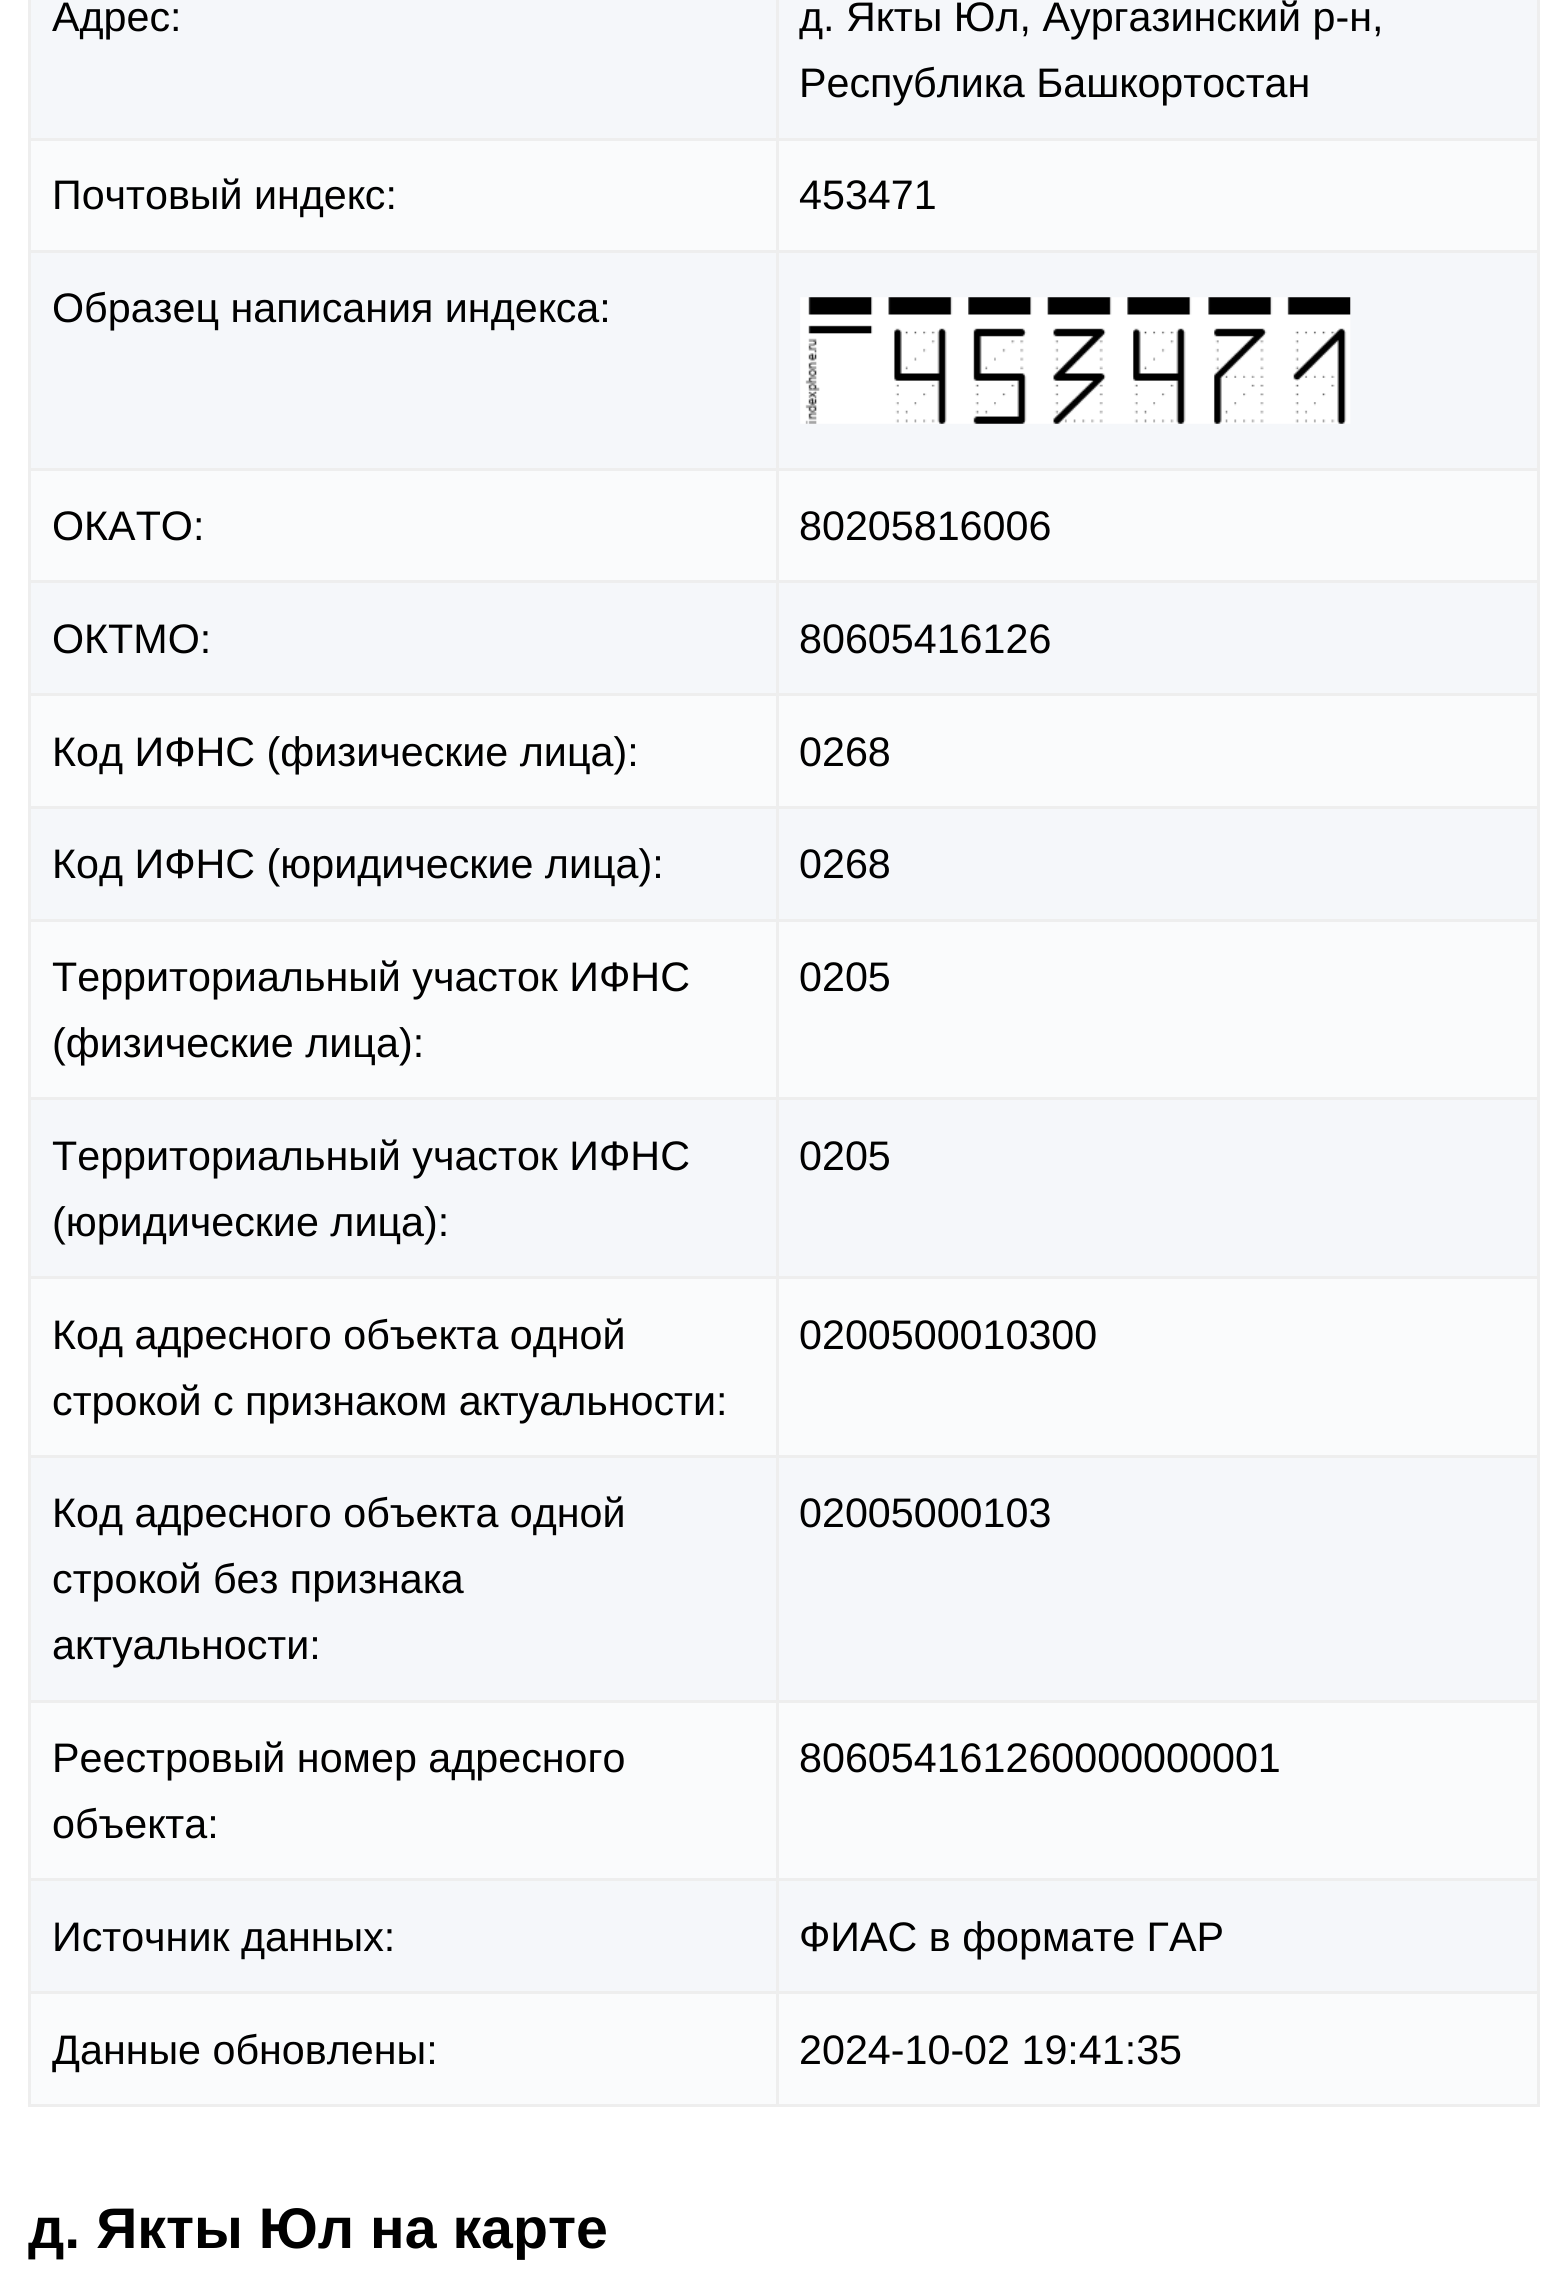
#include <cairo/cairo.h>
#include <math.h>
#include <stddef.h>


static void draw_image(cairo_t *cr, const char *path, double x, double y, double w, double h) {
  cairo_surface_t *image = cairo_image_surface_create_from_png(path);
  cairo_save(cr);
  cairo_set_source_surface(cr, image, x, y);
  cairo_rectangle(cr, x, y, w, h);
  cairo_fill(cr);
  cairo_restore(cr);
  cairo_surface_destroy(image);
}

static void draw(cairo_t *cr) {
  cairo_set_source_rgb(cr, 1, 1, 1);
  cairo_paint(cr);
  cairo_set_source_rgb(cr, 245 / 255.0, 247 / 255.0, 250 / 255.0);
  cairo_rectangle(cr, 31, 0, 745, 138);
  cairo_fill(cr);
  cairo_rectangle(cr, 779, 0, 758, 138);
  cairo_fill(cr);
  cairo_set_source_rgb(cr, 238 / 255.0, 238 / 255.0, 238 / 255.0);
  cairo_rectangle(cr, 776, 138, 764, 3);
  cairo_fill(cr);
  cairo_rectangle(cr, 776, 250, 764, 3);
  cairo_fill(cr);
  cairo_rectangle(cr, 776, 468, 764, 3);
  cairo_fill(cr);
  cairo_rectangle(cr, 776, 580, 764, 3);
  cairo_fill(cr);
  cairo_rectangle(cr, 776, 693, 764, 3);
  cairo_fill(cr);
  cairo_rectangle(cr, 776, 806, 764, 3);
  cairo_fill(cr);
  cairo_rectangle(cr, 776, 919, 764, 3);
  cairo_fill(cr);
  cairo_rectangle(cr, 776, 1097, 764, 3);
  cairo_fill(cr);
  cairo_rectangle(cr, 776, 1276, 764, 3);
  cairo_fill(cr);
  cairo_rectangle(cr, 776, 1455, 764, 3);
  cairo_fill(cr);
  cairo_rectangle(cr, 776, 1700, 764, 3);
  cairo_fill(cr);
  cairo_rectangle(cr, 776, 1878, 764, 3);
  cairo_fill(cr);
  cairo_rectangle(cr, 776, 1991, 764, 3);
  cairo_fill(cr);
  cairo_rectangle(cr, 1537, 1991, 3, 116);
  cairo_fill(cr);
  cairo_rectangle(cr, 776, 2104, 764, 3);
  cairo_fill(cr);
  cairo_rectangle(cr, 776, 1991, 3, 116);
  cairo_fill(cr);
  cairo_rectangle(cr, 28, 1991, 750, 3);
  cairo_fill(cr);
  cairo_rectangle(cr, 776, 1878, 3, 116);
  cairo_fill(cr);
  cairo_rectangle(cr, 28, 1878, 750, 3);
  cairo_fill(cr);
  cairo_rectangle(cr, 776, 1700, 3, 181);
  cairo_fill(cr);
  cairo_rectangle(cr, 28, 1700, 750, 3);
  cairo_fill(cr);
  cairo_rectangle(cr, 776, 1455, 3, 247);
  cairo_fill(cr);
  cairo_rectangle(cr, 28, 1455, 750, 3);
  cairo_fill(cr);
  cairo_rectangle(cr, 776, 1276, 3, 182);
  cairo_fill(cr);
  cairo_rectangle(cr, 28, 1276, 750, 3);
  cairo_fill(cr);
  cairo_rectangle(cr, 776, 1097, 3, 182);
  cairo_fill(cr);
  cairo_rectangle(cr, 28, 1097, 750, 3);
  cairo_fill(cr);
  cairo_rectangle(cr, 776, 919, 3, 181);
  cairo_fill(cr);
  cairo_rectangle(cr, 28, 919, 750, 3);
  cairo_fill(cr);
  cairo_rectangle(cr, 776, 806, 3, 115);
  cairo_fill(cr);
  cairo_rectangle(cr, 28, 806, 750, 3);
  cairo_fill(cr);
  cairo_rectangle(cr, 776, 693, 3, 116);
  cairo_fill(cr);
  cairo_rectangle(cr, 28, 693, 750, 3);
  cairo_fill(cr);
  cairo_rectangle(cr, 776, 580, 3, 116);
  cairo_fill(cr);
  cairo_rectangle(cr, 28, 580, 750, 3);
  cairo_fill(cr);
  cairo_rectangle(cr, 776, 468, 3, 115);
  cairo_fill(cr);
  cairo_rectangle(cr, 28, 468, 750, 3);
  cairo_fill(cr);
  cairo_rectangle(cr, 776, 250, 3, 220);
  cairo_fill(cr);
  cairo_rectangle(cr, 28, 250, 750, 3);
  cairo_fill(cr);
  cairo_rectangle(cr, 776, 138, 3, 115);
  cairo_fill(cr);
  cairo_rectangle(cr, 28, 138, 750, 3);
  cairo_fill(cr);
  cairo_rectangle(cr, 776, 0, 3, 140);
  cairo_fill(cr);
  cairo_set_source_rgb(cr, 250 / 255.0, 251 / 255.0, 252 / 255.0);
  cairo_rectangle(cr, 31, 141, 745, 109);
  cairo_fill(cr);
  cairo_set_source_rgb(cr, 238 / 255.0, 238 / 255.0, 238 / 255.0);
  cairo_rectangle(cr, 28, 2104, 750, 3);
  cairo_fill(cr);
  cairo_rectangle(cr, 28, 1991, 3, 116);
  cairo_fill(cr);
  cairo_rectangle(cr, 28, 1878, 3, 116);
  cairo_fill(cr);
  cairo_rectangle(cr, 28, 1700, 3, 181);
  cairo_fill(cr);
  cairo_rectangle(cr, 28, 1455, 3, 247);
  cairo_fill(cr);
  cairo_rectangle(cr, 28, 1276, 3, 182);
  cairo_fill(cr);
  cairo_rectangle(cr, 28, 1097, 3, 182);
  cairo_fill(cr);
  cairo_rectangle(cr, 28, 919, 3, 181);
  cairo_fill(cr);
  cairo_rectangle(cr, 28, 806, 3, 115);
  cairo_fill(cr);
  cairo_rectangle(cr, 28, 693, 3, 116);
  cairo_fill(cr);
  cairo_rectangle(cr, 28, 580, 3, 116);
  cairo_fill(cr);
  cairo_rectangle(cr, 28, 468, 3, 115);
  cairo_fill(cr);
  cairo_rectangle(cr, 28, 250, 3, 220);
  cairo_fill(cr);
  cairo_rectangle(cr, 28, 0, 3, 253);
  cairo_fill(cr);
  cairo_set_source_rgb(cr, 250 / 255.0, 251 / 255.0, 252 / 255.0);
  cairo_rectangle(cr, 779, 141, 758, 109);
  cairo_fill(cr);
  cairo_set_source_rgb(cr, 238 / 255.0, 238 / 255.0, 238 / 255.0);
  cairo_rectangle(cr, 1537, 1878, 3, 116);
  cairo_fill(cr);
  cairo_rectangle(cr, 1537, 1700, 3, 181);
  cairo_fill(cr);
  cairo_rectangle(cr, 1537, 1455, 3, 247);
  cairo_fill(cr);
  cairo_rectangle(cr, 1537, 1276, 3, 182);
  cairo_fill(cr);
  cairo_rectangle(cr, 1537, 1097, 3, 182);
  cairo_fill(cr);
  cairo_rectangle(cr, 1537, 919, 3, 181);
  cairo_fill(cr);
  cairo_rectangle(cr, 1537, 806, 3, 115);
  cairo_fill(cr);
  cairo_rectangle(cr, 1537, 693, 3, 116);
  cairo_fill(cr);
  cairo_rectangle(cr, 1537, 580, 3, 116);
  cairo_fill(cr);
  cairo_rectangle(cr, 1537, 468, 3, 115);
  cairo_fill(cr);
  cairo_rectangle(cr, 1537, 250, 3, 220);
  cairo_fill(cr);
  cairo_rectangle(cr, 1537, 0, 3, 253);
  cairo_fill(cr);
  cairo_set_source_rgb(cr, 245 / 255.0, 247 / 255.0, 250 / 255.0);
  cairo_rectangle(cr, 31, 253, 745, 215);
  cairo_fill(cr);
  cairo_rectangle(cr, 779, 253, 758, 215);
  cairo_fill(cr);
  draw_image(cr, "images/1.png", 800, 297, 551, 127);
  cairo_set_source_rgb(cr, 250 / 255.0, 251 / 255.0, 252 / 255.0);
  cairo_rectangle(cr, 31, 471, 745, 109);
  cairo_fill(cr);
  cairo_rectangle(cr, 779, 471, 758, 109);
  cairo_fill(cr);
  cairo_set_source_rgb(cr, 245 / 255.0, 247 / 255.0, 250 / 255.0);
  cairo_rectangle(cr, 31, 583, 745, 110);
  cairo_fill(cr);
  cairo_rectangle(cr, 779, 583, 758, 110);
  cairo_fill(cr);
  cairo_set_source_rgb(cr, 250 / 255.0, 251 / 255.0, 252 / 255.0);
  cairo_rectangle(cr, 31, 696, 745, 110);
  cairo_fill(cr);
  cairo_rectangle(cr, 779, 696, 758, 110);
  cairo_fill(cr);
  cairo_set_source_rgb(cr, 245 / 255.0, 247 / 255.0, 250 / 255.0);
  cairo_rectangle(cr, 31, 809, 745, 110);
  cairo_fill(cr);
  cairo_rectangle(cr, 779, 809, 758, 110);
  cairo_fill(cr);
  cairo_set_source_rgb(cr, 250 / 255.0, 251 / 255.0, 252 / 255.0);
  cairo_rectangle(cr, 31, 922, 745, 175);
  cairo_fill(cr);
  cairo_rectangle(cr, 779, 922, 758, 175);
  cairo_fill(cr);
  cairo_set_source_rgb(cr, 245 / 255.0, 247 / 255.0, 250 / 255.0);
  cairo_rectangle(cr, 31, 1100, 745, 176);
  cairo_fill(cr);
  cairo_rectangle(cr, 779, 1100, 758, 176);
  cairo_fill(cr);
  cairo_set_source_rgb(cr, 250 / 255.0, 251 / 255.0, 252 / 255.0);
  cairo_rectangle(cr, 31, 1279, 745, 176);
  cairo_fill(cr);
  cairo_rectangle(cr, 779, 1279, 758, 176);
  cairo_fill(cr);
  cairo_set_source_rgb(cr, 245 / 255.0, 247 / 255.0, 250 / 255.0);
  cairo_rectangle(cr, 31, 1458, 745, 242);
  cairo_fill(cr);
  cairo_rectangle(cr, 779, 1458, 758, 242);
  cairo_fill(cr);
  cairo_set_source_rgb(cr, 250 / 255.0, 251 / 255.0, 252 / 255.0);
  cairo_rectangle(cr, 31, 1703, 745, 175);
  cairo_fill(cr);
  cairo_rectangle(cr, 779, 1703, 758, 175);
  cairo_fill(cr);
  cairo_set_source_rgb(cr, 245 / 255.0, 247 / 255.0, 250 / 255.0);
  cairo_rectangle(cr, 31, 1881, 745, 110);
  cairo_fill(cr);
  cairo_rectangle(cr, 779, 1881, 758, 110);
  cairo_fill(cr);
  cairo_set_source_rgb(cr, 250 / 255.0, 251 / 255.0, 252 / 255.0);
  cairo_rectangle(cr, 31, 1994, 745, 110);
  cairo_fill(cr);
  cairo_rectangle(cr, 779, 1994, 758, 110);
  cairo_fill(cr);
  cairo_select_font_face(cr, "Liberation Sans", CAIRO_FONT_SLANT_NORMAL, CAIRO_FONT_WEIGHT_NORMAL);
  cairo_set_font_size(cr, 41.25);
  cairo_set_source_rgb(cr, 0, 0, 0);
  cairo_move_to(cr, 52, 31);
  cairo_show_text(cr, "Адрес:");
  cairo_move_to(cr, 799, 31);
  cairo_show_text(cr, "д. Якты Юл, Аургазинский р-н,");
  cairo_move_to(cr, 799, 97);
  cairo_show_text(cr, "Республика Башкортостан");
  cairo_move_to(cr, 52, 209);
  cairo_show_text(cr, "Почтовый индекс:");
  cairo_move_to(cr, 799, 209);
  cairo_show_text(cr, "453471");
  cairo_move_to(cr, 52, 322);
  cairo_show_text(cr, "Образец написания индекса:");
  cairo_move_to(cr, 52, 540);
  cairo_show_text(cr, "ОКАТО:");
  cairo_move_to(cr, 799, 540);
  cairo_show_text(cr, "80205816006");
  cairo_move_to(cr, 52, 653);
  cairo_show_text(cr, "ОКТМО:");
  cairo_move_to(cr, 799, 653);
  cairo_show_text(cr, "80605416126");
  cairo_move_to(cr, 52, 766);
  cairo_show_text(cr, "Код ИФНС (физические лица):");
  cairo_move_to(cr, 799, 766);
  cairo_show_text(cr, "0268");
  cairo_move_to(cr, 52, 878);
  cairo_show_text(cr, "Код ИФНС (юридические лица):");
  cairo_move_to(cr, 799, 878);
  cairo_show_text(cr, "0268");
  cairo_move_to(cr, 52, 991);
  cairo_show_text(cr, "Территориальный участок ИФНС");
  cairo_move_to(cr, 52, 1057);
  cairo_show_text(cr, "(физические лица):");
  cairo_move_to(cr, 799, 991);
  cairo_show_text(cr, "0205");
  cairo_move_to(cr, 52, 1170);
  cairo_show_text(cr, "Территориальный участок ИФНС");
  cairo_move_to(cr, 52, 1236);
  cairo_show_text(cr, "(юридические лица):");
  cairo_move_to(cr, 799, 1170);
  cairo_show_text(cr, "0205");
  cairo_move_to(cr, 52, 1349);
  cairo_show_text(cr, "Код адресного объекта одной");
  cairo_move_to(cr, 52, 1415);
  cairo_show_text(cr, "строкой с признаком актуальности:");
  cairo_move_to(cr, 799, 1349);
  cairo_show_text(cr, "0200500010300");
  cairo_move_to(cr, 52, 1527);
  cairo_show_text(cr, "Код адресного объекта одной");
  cairo_move_to(cr, 52, 1593);
  cairo_show_text(cr, "строкой без признака");
  cairo_move_to(cr, 52, 1659);
  cairo_show_text(cr, "актуальности:");
  cairo_move_to(cr, 799, 1527);
  cairo_show_text(cr, "02005000103");
  cairo_move_to(cr, 52, 1772);
  cairo_show_text(cr, "Реестровый номер адресного");
  cairo_move_to(cr, 52, 1838);
  cairo_show_text(cr, "объекта:");
  cairo_move_to(cr, 799, 1772);
  cairo_show_text(cr, "806054161260000000001");
  cairo_move_to(cr, 52, 1951);
  cairo_show_text(cr, "Источник данных:");
  cairo_move_to(cr, 799, 1951);
  cairo_show_text(cr, "ФИАС в формате ГАР");
  cairo_move_to(cr, 52, 2064);
  cairo_show_text(cr, "Данные обновлены:");
  cairo_move_to(cr, 799, 2064);
  cairo_show_text(cr, "2024-10-02 19:41:35");
  cairo_select_font_face(cr, "Liberation Sans", CAIRO_FONT_SLANT_NORMAL, CAIRO_FONT_WEIGHT_BOLD);
  cairo_set_font_size(cr, 57.25);
  cairo_move_to(cr, 28, 2248);
  cairo_show_text(cr, "д. Якты Юл на карте");
}

int main(void) {
  cairo_surface_t *surface = cairo_image_surface_create(CAIRO_FORMAT_RGB24, 1567, 2278);
  cairo_t *cr = cairo_create(surface);
  cairo_font_options_t *options = cairo_font_options_create();
  cairo_font_options_set_hint_metrics(options, CAIRO_HINT_METRICS_OFF);
  cairo_font_options_set_hint_style(options, CAIRO_HINT_STYLE_NONE);
  cairo_set_font_options(cr, options);
  cairo_set_miter_limit(cr, 4);
  draw(cr);
  cairo_surface_write_to_png(surface, "out.png");
  cairo_font_options_destroy(options);
  cairo_destroy(cr);
  cairo_surface_destroy(surface);
  return 0;
}
